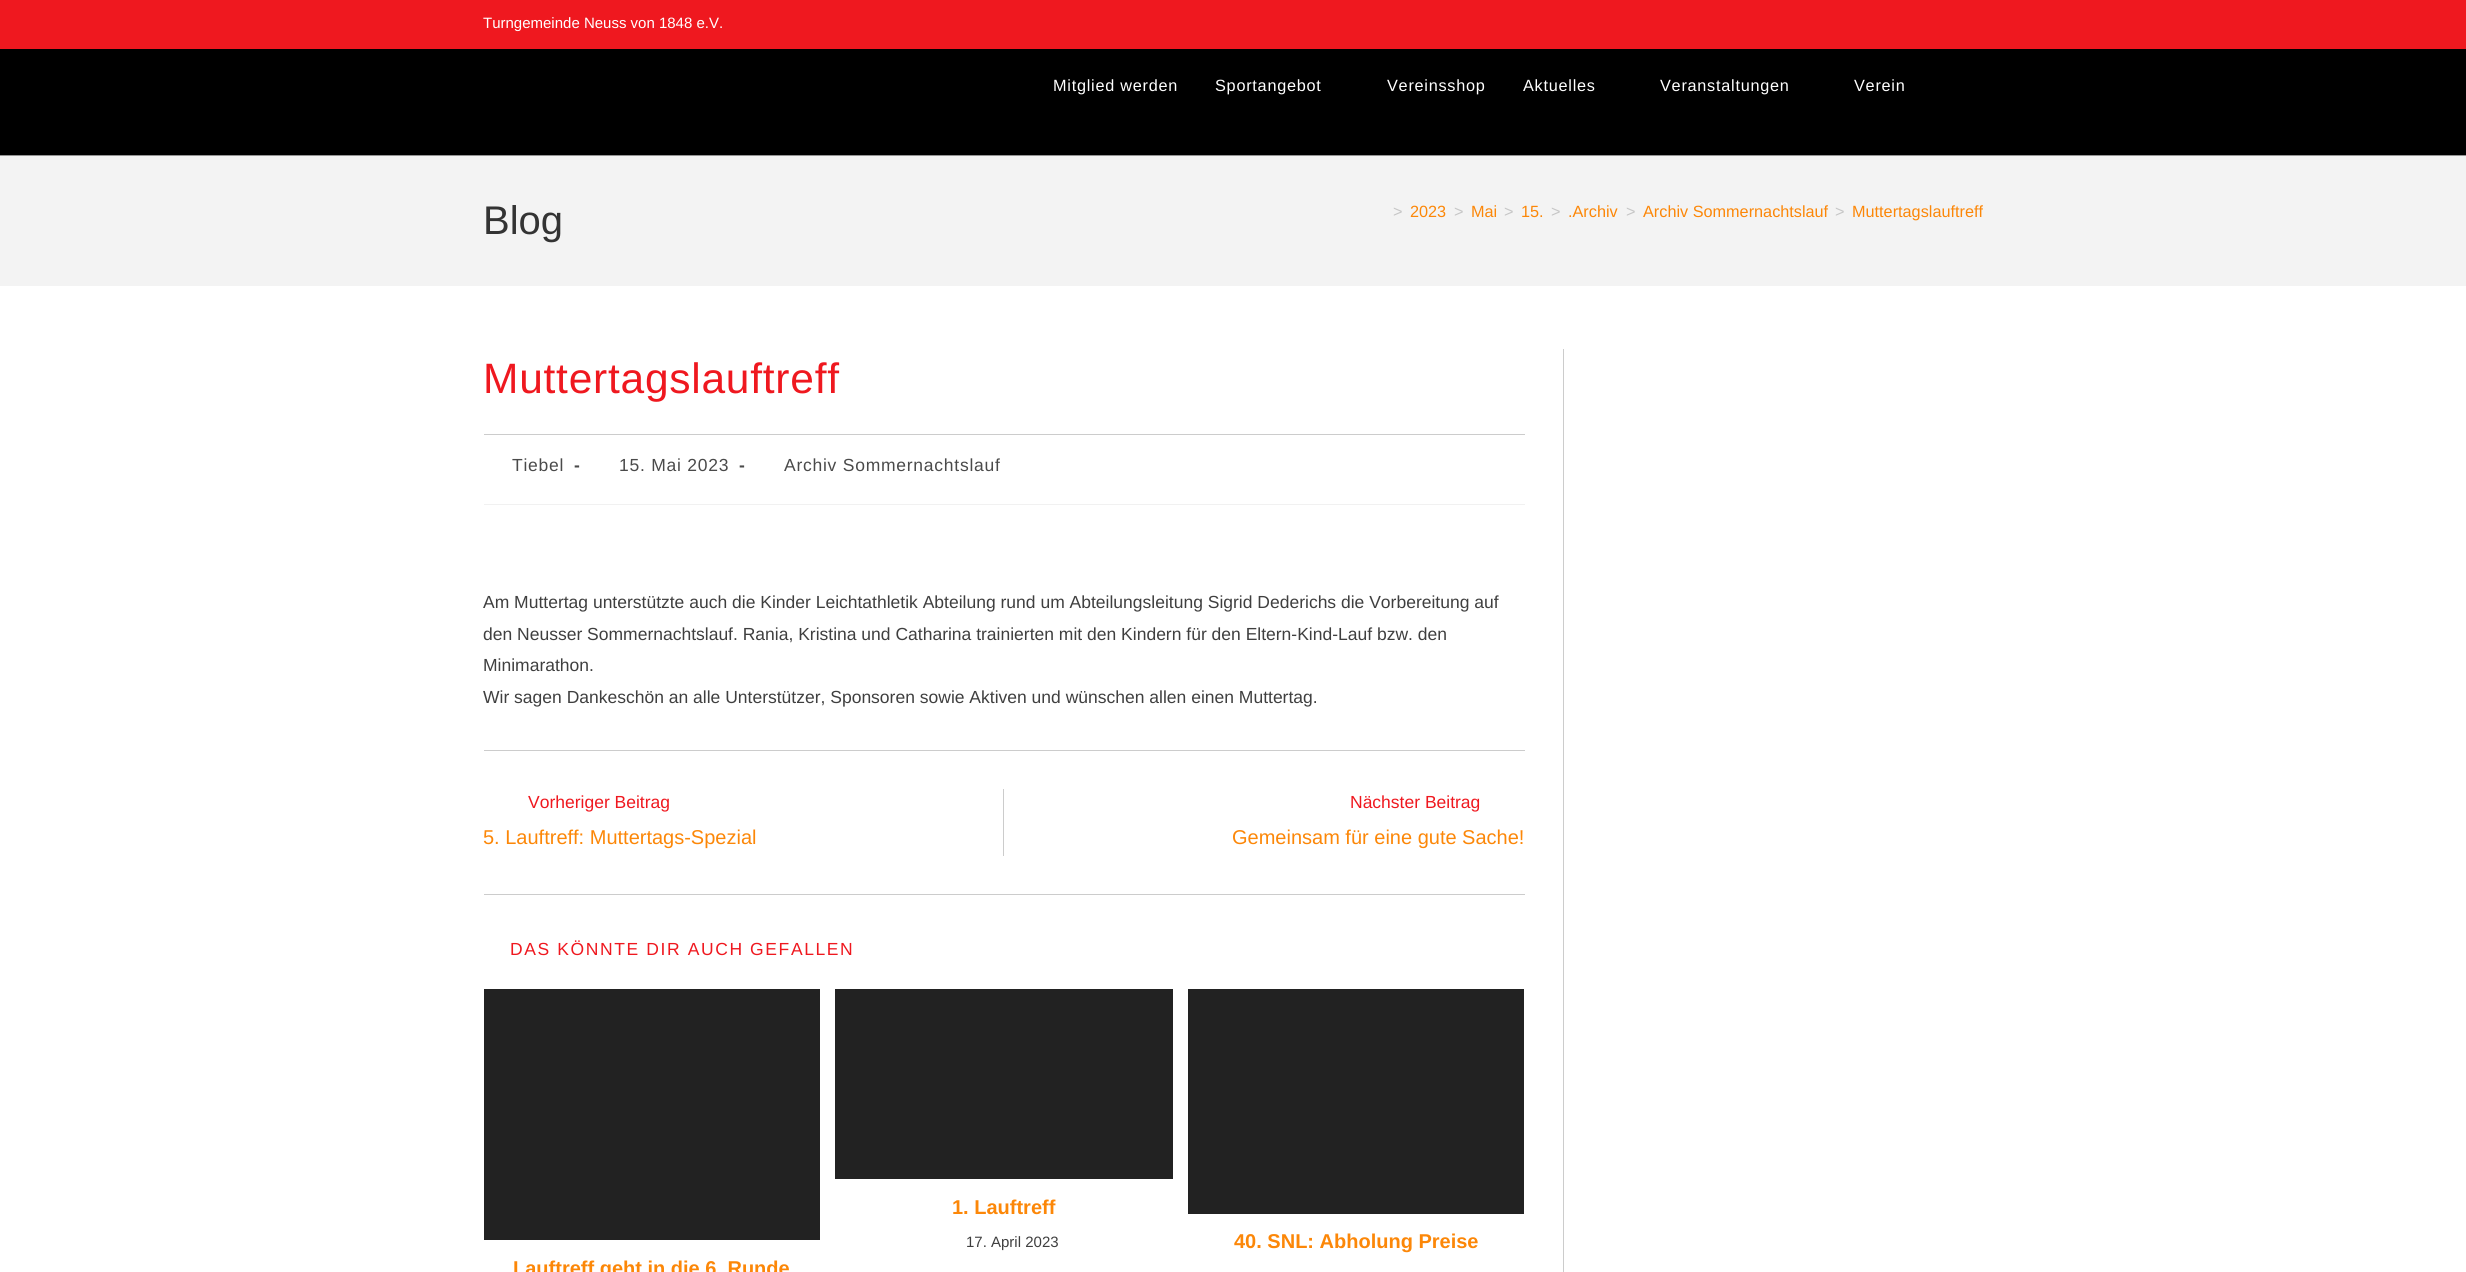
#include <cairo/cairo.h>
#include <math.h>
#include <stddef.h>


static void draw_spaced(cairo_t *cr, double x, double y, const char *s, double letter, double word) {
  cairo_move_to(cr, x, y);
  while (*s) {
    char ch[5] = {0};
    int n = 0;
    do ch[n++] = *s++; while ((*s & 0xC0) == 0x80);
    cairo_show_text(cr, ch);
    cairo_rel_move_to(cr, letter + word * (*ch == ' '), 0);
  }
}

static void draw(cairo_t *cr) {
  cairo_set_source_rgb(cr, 1, 1, 1);
  cairo_paint(cr);
  cairo_set_source_rgb(cr, 239 / 255.0, 24 / 255.0, 31 / 255.0);
  cairo_rectangle(cr, 0, 0, 2466, 49);
  cairo_fill(cr);
  cairo_set_source_rgb(cr, 0, 0, 0);
  cairo_rectangle(cr, 0, 49, 2466, 106);
  cairo_fill(cr);
  cairo_set_source_rgb(cr, 147 / 255.0, 147 / 255.0, 147 / 255.0);
  cairo_rectangle(cr, 0, 155, 2466, 1);
  cairo_fill(cr);
  cairo_set_source_rgb(cr, 243 / 255.0, 243 / 255.0, 243 / 255.0);
  cairo_rectangle(cr, 0, 156, 2466, 130);
  cairo_fill(cr);
  cairo_set_source_rgb(cr, 204 / 255.0, 204 / 255.0, 204 / 255.0);
  cairo_rectangle(cr, 1563, 349, 1, 923);
  cairo_fill(cr);
  cairo_rectangle(cr, 484, 434, 1041, 1);
  cairo_fill(cr);
  cairo_set_source_rgb(cr, 241 / 255.0, 241 / 255.0, 241 / 255.0);
  cairo_rectangle(cr, 484, 504, 1041, 1);
  cairo_fill(cr);
  cairo_set_source_rgb(cr, 204 / 255.0, 204 / 255.0, 204 / 255.0);
  cairo_rectangle(cr, 484, 750, 1041, 1);
  cairo_fill(cr);
  cairo_rectangle(cr, 1003, 789, 1, 67);
  cairo_fill(cr);
  cairo_rectangle(cr, 484, 894, 1041, 1);
  cairo_fill(cr);
  cairo_set_source_rgb(cr, 34 / 255.0, 34 / 255.0, 34 / 255.0);
  cairo_rectangle(cr, 835, 989, 338, 190);
  cairo_fill(cr);
  cairo_rectangle(cr, 1188, 989, 336, 225);
  cairo_fill(cr);
  cairo_rectangle(cr, 484, 989, 336, 251);
  cairo_fill(cr);
  cairo_select_font_face(cr, "Liberation Sans", CAIRO_FONT_SLANT_NORMAL, CAIRO_FONT_WEIGHT_NORMAL);
  cairo_set_font_size(cr, 15);
  cairo_set_source_rgb(cr, 1, 1, 1);
  cairo_move_to(cr, 483, 28);
  cairo_show_text(cr, "Turngemeinde Neuss von 1848 e.V.");
  cairo_set_font_size(cr, 16.25);
  draw_spaced(cr, 1053, 91, "Mitglied werden", 0.75, 0);
  draw_spaced(cr, 1215, 91, "Sportangebot", 0.75, 0);
  draw_spaced(cr, 1387, 91, "Vereinsshop", 0.75, 0);
  draw_spaced(cr, 1523, 91, "Aktuelles", 0.75, 0);
  draw_spaced(cr, 1660, 91, "Veranstaltungen", 0.75, 0);
  draw_spaced(cr, 1854, 91, "Verein", 0.75, 0);
  cairo_set_font_size(cr, 40);
  cairo_set_source_rgb(cr, 51 / 255.0, 51 / 255.0, 51 / 255.0);
  cairo_move_to(cr, 483, 234);
  cairo_show_text(cr, "Blog");
  cairo_set_font_size(cr, 16.25);
  cairo_set_source_rgb(cr, 198 / 255.0, 198 / 255.0, 198 / 255.0);
  cairo_move_to(cr, 1393, 217);
  cairo_show_text(cr, ">");
  cairo_set_source_rgb(cr, 252 / 255.0, 135 / 255.0, 8 / 255.0);
  cairo_move_to(cr, 1410, 217);
  cairo_show_text(cr, "2023");
  cairo_set_source_rgb(cr, 198 / 255.0, 198 / 255.0, 198 / 255.0);
  cairo_move_to(cr, 1454, 217);
  cairo_show_text(cr, ">");
  cairo_set_source_rgb(cr, 252 / 255.0, 135 / 255.0, 8 / 255.0);
  cairo_move_to(cr, 1471, 217);
  cairo_show_text(cr, "Mai");
  cairo_set_source_rgb(cr, 198 / 255.0, 198 / 255.0, 198 / 255.0);
  cairo_move_to(cr, 1504, 217);
  cairo_show_text(cr, ">");
  cairo_set_source_rgb(cr, 252 / 255.0, 135 / 255.0, 8 / 255.0);
  cairo_move_to(cr, 1521, 217);
  cairo_show_text(cr, "15.");
  cairo_set_source_rgb(cr, 198 / 255.0, 198 / 255.0, 198 / 255.0);
  cairo_move_to(cr, 1551, 217);
  cairo_show_text(cr, ">");
  cairo_set_source_rgb(cr, 252 / 255.0, 135 / 255.0, 8 / 255.0);
  cairo_move_to(cr, 1568, 217);
  cairo_show_text(cr, ".Archiv");
  cairo_set_source_rgb(cr, 198 / 255.0, 198 / 255.0, 198 / 255.0);
  cairo_move_to(cr, 1626, 217);
  cairo_show_text(cr, ">");
  cairo_set_source_rgb(cr, 252 / 255.0, 135 / 255.0, 8 / 255.0);
  cairo_move_to(cr, 1643, 217);
  cairo_show_text(cr, "Archiv Sommernachtslauf");
  cairo_set_source_rgb(cr, 198 / 255.0, 198 / 255.0, 198 / 255.0);
  cairo_move_to(cr, 1835, 217);
  cairo_show_text(cr, ">");
  cairo_set_source_rgb(cr, 252 / 255.0, 135 / 255.0, 8 / 255.0);
  cairo_move_to(cr, 1852, 217);
  cairo_show_text(cr, "Muttertagslauftreff");
  cairo_set_font_size(cr, 42.5);
  cairo_set_source_rgb(cr, 239 / 255.0, 24 / 255.0, 31 / 255.0);
  draw_spaced(cr, 483, 393, "Muttertagslauftreff", 0.75, 0);
  cairo_set_font_size(cr, 17.5);
  cairo_set_source_rgb(cr, 74 / 255.0, 74 / 255.0, 74 / 255.0);
  draw_spaced(cr, 512, 471, "Tiebel", 0.75, 0);
  cairo_select_font_face(cr, "Liberation Sans", CAIRO_FONT_SLANT_NORMAL, CAIRO_FONT_WEIGHT_BOLD);
  draw_spaced(cr, 574, 471, "-", 0.75, 0);
  cairo_select_font_face(cr, "Liberation Sans", CAIRO_FONT_SLANT_NORMAL, CAIRO_FONT_WEIGHT_NORMAL);
  draw_spaced(cr, 619, 471, "15. Mai 2023", 0.75, 0);
  cairo_select_font_face(cr, "Liberation Sans", CAIRO_FONT_SLANT_NORMAL, CAIRO_FONT_WEIGHT_BOLD);
  draw_spaced(cr, 739, 471, "-", 0.75, 0);
  cairo_select_font_face(cr, "Liberation Sans", CAIRO_FONT_SLANT_NORMAL, CAIRO_FONT_WEIGHT_NORMAL);
  draw_spaced(cr, 784, 471, "Archiv Sommernachtslauf", 0.75, 0);
  cairo_set_source_rgb(cr, 63 / 255.0, 63 / 255.0, 63 / 255.0);
  cairo_move_to(cr, 483, 608);
  cairo_show_text(cr, "Am Muttertag unterstützte auch die Kinder Leichtathletik Abteilung rund um Abteilungsleitung Sigrid Dederichs die Vorbereitung auf");
  cairo_move_to(cr, 483, 640);
  cairo_show_text(cr, "den Neusser Sommernachtslauf. Rania, Kristina und Catharina trainierten mit den Kindern für den Eltern-Kind-Lauf bzw. den");
  cairo_move_to(cr, 483, 671);
  cairo_show_text(cr, "Minimarathon.");
  cairo_move_to(cr, 483, 703);
  cairo_show_text(cr, "Wir sagen Dankeschön an alle Unterstützer, Sponsoren sowie Aktiven und wünschen allen einen Muttertag.");
  cairo_set_source_rgb(cr, 239 / 255.0, 24 / 255.0, 31 / 255.0);
  cairo_move_to(cr, 528, 808);
  cairo_show_text(cr, "Vorheriger Beitrag");
  cairo_set_font_size(cr, 20);
  cairo_set_source_rgb(cr, 252 / 255.0, 135 / 255.0, 8 / 255.0);
  cairo_move_to(cr, 483, 844);
  cairo_show_text(cr, "5. Lauftreff: Muttertags-Spezial");
  cairo_set_font_size(cr, 17.5);
  cairo_set_source_rgb(cr, 239 / 255.0, 24 / 255.0, 31 / 255.0);
  cairo_move_to(cr, 1350, 808);
  cairo_show_text(cr, "Nächster Beitrag");
  cairo_set_font_size(cr, 20);
  cairo_set_source_rgb(cr, 252 / 255.0, 135 / 255.0, 8 / 255.0);
  cairo_move_to(cr, 1232, 844);
  cairo_show_text(cr, "Gemeinsam für eine gute Sache!");
  cairo_set_font_size(cr, 17.5);
  cairo_set_source_rgb(cr, 239 / 255.0, 24 / 255.0, 31 / 255.0);
  draw_spaced(cr, 510, 955, "DAS KÖNNTE DIR AUCH GEFALLEN", 1.6, 0);
  cairo_select_font_face(cr, "Liberation Sans", CAIRO_FONT_SLANT_NORMAL, CAIRO_FONT_WEIGHT_BOLD);
  cairo_set_font_size(cr, 20);
  cairo_set_source_rgb(cr, 252 / 255.0, 135 / 255.0, 8 / 255.0);
  cairo_move_to(cr, 952, 1214);
  cairo_show_text(cr, "1. Lauftreff");
  cairo_select_font_face(cr, "Liberation Sans", CAIRO_FONT_SLANT_NORMAL, CAIRO_FONT_WEIGHT_NORMAL);
  cairo_set_font_size(cr, 15);
  cairo_set_source_rgb(cr, 63 / 255.0, 63 / 255.0, 63 / 255.0);
  cairo_move_to(cr, 966, 1247);
  cairo_show_text(cr, "17. April 2023");
  cairo_select_font_face(cr, "Liberation Sans", CAIRO_FONT_SLANT_NORMAL, CAIRO_FONT_WEIGHT_BOLD);
  cairo_set_font_size(cr, 20);
  cairo_set_source_rgb(cr, 252 / 255.0, 135 / 255.0, 8 / 255.0);
  cairo_move_to(cr, 1234, 1248);
  cairo_show_text(cr, "40. SNL: Abholung Preise");
  cairo_move_to(cr, 513, 1275);
  cairo_show_text(cr, "Lauftreff geht in die 6. Runde");
}

int main(void) {
  cairo_surface_t *surface = cairo_image_surface_create(CAIRO_FORMAT_RGB24, 2466, 1272);
  cairo_t *cr = cairo_create(surface);
  cairo_font_options_t *options = cairo_font_options_create();
  cairo_font_options_set_hint_metrics(options, CAIRO_HINT_METRICS_OFF);
  cairo_font_options_set_hint_style(options, CAIRO_HINT_STYLE_NONE);
  cairo_set_font_options(cr, options);
  cairo_set_miter_limit(cr, 4);
  draw(cr);
  cairo_surface_write_to_png(surface, "out.png");
  cairo_font_options_destroy(options);
  cairo_destroy(cr);
  cairo_surface_destroy(surface);
  return 0;
}
